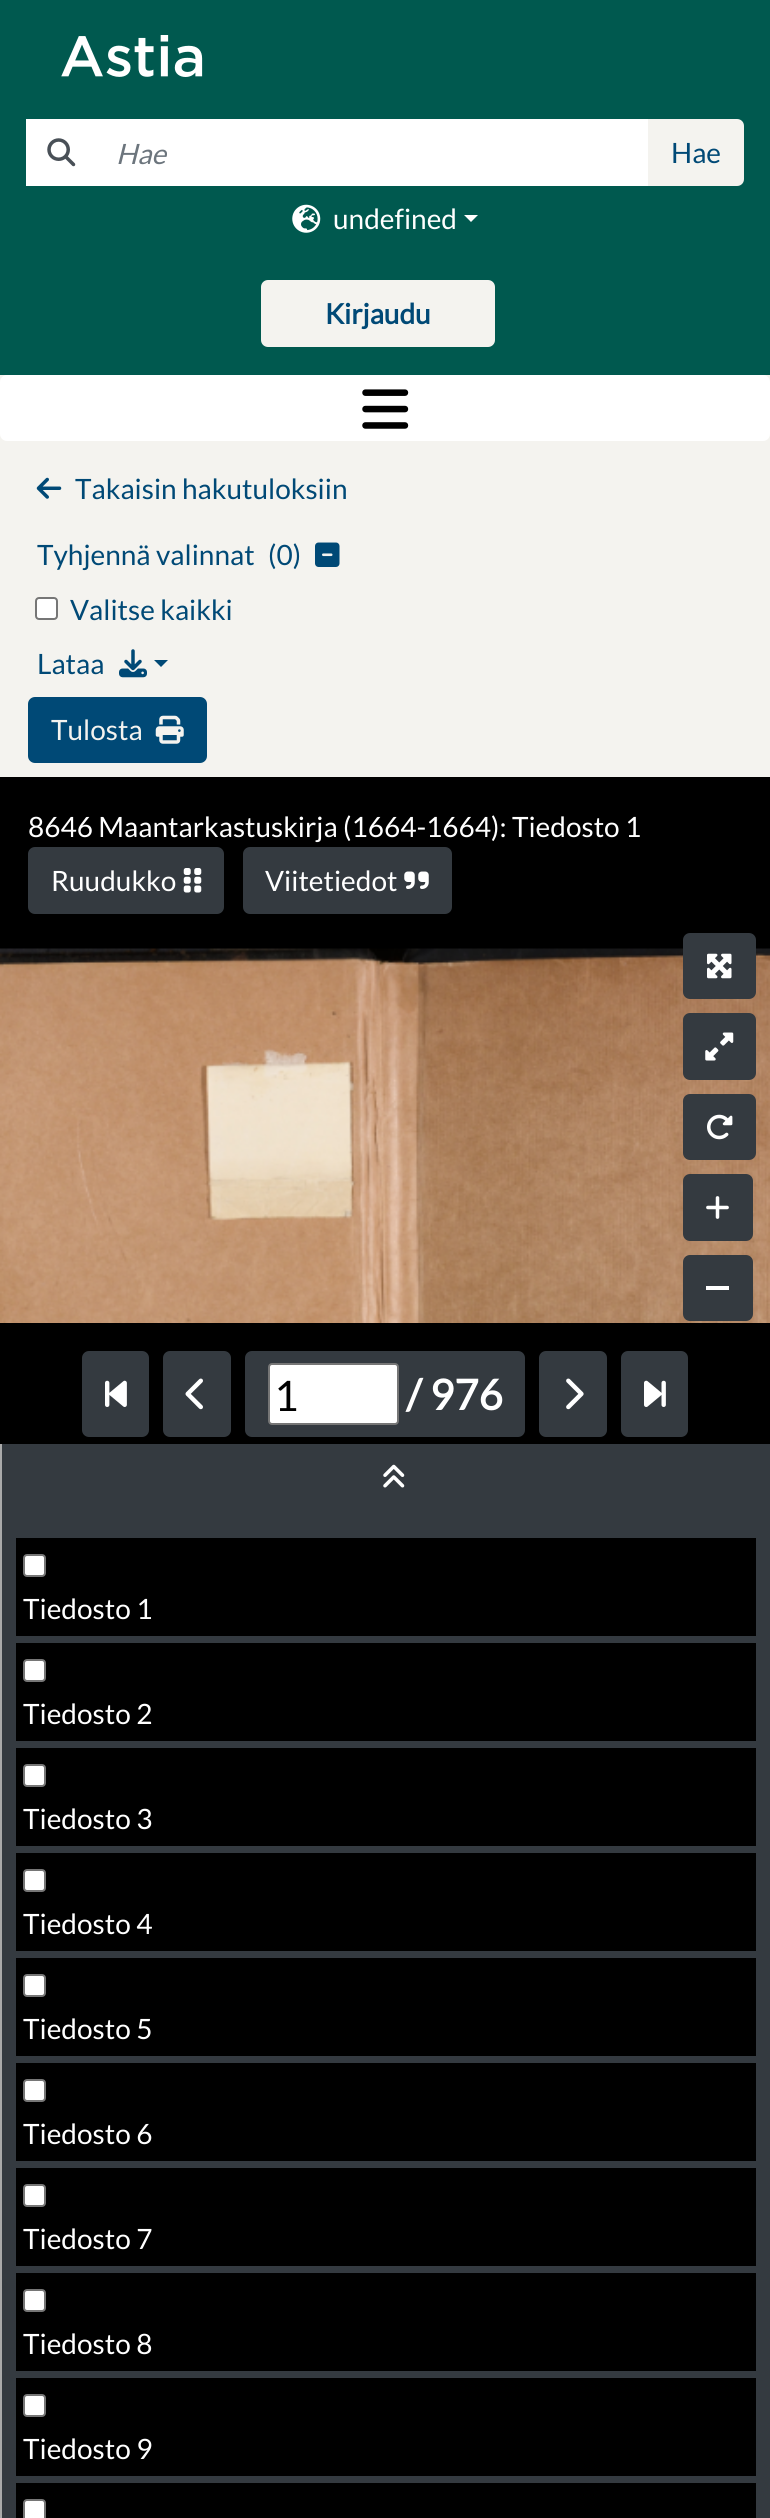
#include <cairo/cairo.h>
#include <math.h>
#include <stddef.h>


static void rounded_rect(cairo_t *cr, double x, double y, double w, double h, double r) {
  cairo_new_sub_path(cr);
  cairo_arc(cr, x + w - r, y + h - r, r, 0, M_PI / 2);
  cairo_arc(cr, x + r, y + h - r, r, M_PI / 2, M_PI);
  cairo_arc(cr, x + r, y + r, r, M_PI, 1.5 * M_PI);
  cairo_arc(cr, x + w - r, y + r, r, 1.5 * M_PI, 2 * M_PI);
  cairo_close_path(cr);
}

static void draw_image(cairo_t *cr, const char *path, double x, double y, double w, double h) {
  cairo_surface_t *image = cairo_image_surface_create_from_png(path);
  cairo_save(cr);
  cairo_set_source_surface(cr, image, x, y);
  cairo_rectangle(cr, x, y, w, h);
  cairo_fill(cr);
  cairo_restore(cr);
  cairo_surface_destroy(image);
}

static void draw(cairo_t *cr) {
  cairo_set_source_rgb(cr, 244 / 255.0, 243 / 255.0, 239 / 255.0);
  cairo_paint(cr);
  cairo_set_source_rgb(cr, 0, 89 / 255.0, 79 / 255.0);
  cairo_rectangle(cr, 0, 0, 770, 375);
  cairo_fill(cr);
  draw_image(cr, "images/1.png", 61, 35, 142, 42);
  cairo_set_source_rgb(cr, 1, 1, 1);
  cairo_rectangle(cr, 26, 119, 622, 67);
  cairo_fill(cr);
  draw_image(cr, "images/2.png", 47, 138, 29, 29);
  cairo_set_source_rgb(cr, 244 / 255.0, 243 / 255.0, 239 / 255.0);
  cairo_new_path(cr);
  cairo_move_to(cr, 648, 119);
  cairo_line_to(cr, 737, 119);
  cairo_curve_to(cr, 741, 119, 744, 122, 744, 126);
  cairo_line_to(cr, 744, 179);
  cairo_curve_to(cr, 744, 183, 741, 186, 737, 186);
  cairo_line_to(cr, 648, 186);
  cairo_close_path(cr);
  cairo_fill(cr);
  draw_image(cr, "images/3.png", 292, 204, 29, 29);
  cairo_set_source_rgb(cr, 1, 1, 1);
  cairo_new_path(cr);
  cairo_move_to(cr, 464, 215);
  cairo_line_to(cr, 478, 215);
  cairo_line_to(cr, 471, 222);
  cairo_close_path(cr);
  cairo_fill(cr);
  cairo_set_source_rgb(cr, 244 / 255.0, 243 / 255.0, 239 / 255.0);
  rounded_rect(cr, 261, 280, 234, 67, 7);
  cairo_fill(cr);
  cairo_set_source_rgb(cr, 1, 1, 1);
  rounded_rect(cr, 0, 375, 770, 66, 7);
  cairo_fill(cr);
  draw_image(cr, "images/4.png", 362, 389, 47, 40);
  draw_image(cr, "images/5.png", 36, 477, 26, 22);
  draw_image(cr, "images/6.png", 315, 542, 25, 25);
  rounded_rect(cr, 36, 598, 21, 21, 3);
  cairo_fill_preserve(cr);
  cairo_set_source_rgb(cr, 118 / 255.0, 118 / 255.0, 118 / 255.0);
  cairo_stroke(cr);
  draw_image(cr, "images/7.png", 119, 649, 28, 29);
  cairo_set_source_rgb(cr, 0, 73 / 255.0, 118 / 255.0);
  cairo_new_path(cr);
  cairo_move_to(cr, 154, 660);
  cairo_line_to(cr, 168, 660);
  cairo_line_to(cr, 161, 667);
  cairo_close_path(cr);
  cairo_fill(cr);
  rounded_rect(cr, 28, 697, 179, 66, 7);
  cairo_fill(cr);
  draw_image(cr, "images/8.png", 155, 715, 29, 29);
  cairo_set_source_rgb(cr, 0, 0, 0);
  cairo_rectangle(cr, 0, 777, 770, 667);
  cairo_fill(cr);
  cairo_set_source_rgb(cr, 52 / 255.0, 58 / 255.0, 64 / 255.0);
  rounded_rect(cr, 28, 847, 196, 67, 7);
  cairo_fill(cr);
  draw_image(cr, "images/9.png", 183, 868, 19, 25);
  rounded_rect(cr, 243, 847, 209, 67, 7);
  cairo_fill(cr);
  draw_image(cr, "images/10.png", 404, 871, 25, 18);
  draw_image(cr, "images/15.png", 0, 948, 770, 375);
  rounded_rect(cr, 683, 933, 73, 66, 7);
  cairo_fill(cr);
  draw_image(cr, "images/11.png", 707, 953, 25, 26);
  rounded_rect(cr, 683, 1013, 73, 67, 7);
  cairo_fill(cr);
  draw_image(cr, "images/12.png", 705, 1032, 29, 29);
  rounded_rect(cr, 683, 1094, 73, 66, 7);
  cairo_fill(cr);
  draw_image(cr, "images/13.png", 707, 1114, 26, 26);
  rounded_rect(cr, 683, 1174, 70, 67, 7);
  cairo_fill(cr);
  draw_image(cr, "images/14.png", 706, 1196, 23, 23);
  rounded_rect(cr, 683, 1255, 70, 66, 7);
  cairo_fill(cr);
  cairo_set_source_rgb(cr, 1, 1, 1);
  cairo_rectangle(cr, 706, 1286, 23, 4);
  cairo_fill(cr);
  cairo_set_source_rgb(cr, 52 / 255.0, 58 / 255.0, 64 / 255.0);
  rounded_rect(cr, 82, 1351, 67, 86, 7);
  cairo_fill(cr);
  draw_image(cr, "images/16.png", 105, 1380, 22, 27);
  rounded_rect(cr, 163, 1351, 68, 86, 7);
  cairo_fill(cr);
  draw_image(cr, "images/17.png", 185, 1378, 18, 32);
  rounded_rect(cr, 245, 1351, 280, 86, 7);
  cairo_fill(cr);
  cairo_set_source_rgb(cr, 1, 1, 1);
  rounded_rect(cr, 269, 1364, 129, 60, 3);
  cairo_fill_preserve(cr);
  cairo_set_source_rgb(cr, 118 / 255.0, 118 / 255.0, 118 / 255.0);
  cairo_stroke(cr);
  cairo_set_source_rgb(cr, 52 / 255.0, 58 / 255.0, 64 / 255.0);
  rounded_rect(cr, 539, 1351, 68, 86, 7);
  cairo_fill(cr);
  draw_image(cr, "images/18.png", 566, 1378, 18, 32);
  rounded_rect(cr, 621, 1351, 67, 86, 7);
  cairo_fill(cr);
  draw_image(cr, "images/19.png", 644, 1380, 22, 27);
  cairo_rectangle(cr, 2, 1444, 768, 1074);
  cairo_fill(cr);
  cairo_set_source_rgb(cr, 170 / 255.0, 170 / 255.0, 170 / 255.0);
  cairo_rectangle(cr, 0, 1444, 2, 1074);
  cairo_fill(cr);
  draw_image(cr, "images/20.png", 383, 1464, 22, 24);
  cairo_set_source_rgb(cr, 0, 0, 0);
  cairo_rectangle(cr, 16, 1538, 740, 98);
  cairo_fill(cr);
  cairo_set_source_rgb(cr, 1, 1, 1);
  rounded_rect(cr, 24, 1555, 21, 21, 3);
  cairo_fill_preserve(cr);
  cairo_set_source_rgb(cr, 118 / 255.0, 118 / 255.0, 118 / 255.0);
  cairo_stroke(cr);
  cairo_set_source_rgb(cr, 0, 0, 0);
  cairo_rectangle(cr, 16, 1643, 740, 98);
  cairo_fill(cr);
  cairo_set_source_rgb(cr, 1, 1, 1);
  rounded_rect(cr, 24, 1660, 21, 21, 3);
  cairo_fill_preserve(cr);
  cairo_set_source_rgb(cr, 118 / 255.0, 118 / 255.0, 118 / 255.0);
  cairo_stroke(cr);
  cairo_set_source_rgb(cr, 0, 0, 0);
  cairo_rectangle(cr, 16, 1748, 740, 98);
  cairo_fill(cr);
  cairo_set_source_rgb(cr, 1, 1, 1);
  rounded_rect(cr, 24, 1765, 21, 21, 3);
  cairo_fill_preserve(cr);
  cairo_set_source_rgb(cr, 118 / 255.0, 118 / 255.0, 118 / 255.0);
  cairo_stroke(cr);
  cairo_set_source_rgb(cr, 0, 0, 0);
  cairo_rectangle(cr, 16, 1853, 740, 98);
  cairo_fill(cr);
  cairo_set_source_rgb(cr, 1, 1, 1);
  rounded_rect(cr, 24, 1870, 21, 21, 3);
  cairo_fill_preserve(cr);
  cairo_set_source_rgb(cr, 118 / 255.0, 118 / 255.0, 118 / 255.0);
  cairo_stroke(cr);
  cairo_set_source_rgb(cr, 0, 0, 0);
  cairo_rectangle(cr, 16, 1958, 740, 98);
  cairo_fill(cr);
  cairo_set_source_rgb(cr, 1, 1, 1);
  rounded_rect(cr, 24, 1975, 21, 21, 3);
  cairo_fill_preserve(cr);
  cairo_set_source_rgb(cr, 118 / 255.0, 118 / 255.0, 118 / 255.0);
  cairo_stroke(cr);
  cairo_set_source_rgb(cr, 0, 0, 0);
  cairo_rectangle(cr, 16, 2063, 740, 98);
  cairo_fill(cr);
  cairo_set_source_rgb(cr, 1, 1, 1);
  rounded_rect(cr, 24, 2080, 21, 21, 3);
  cairo_fill_preserve(cr);
  cairo_set_source_rgb(cr, 118 / 255.0, 118 / 255.0, 118 / 255.0);
  cairo_stroke(cr);
  cairo_set_source_rgb(cr, 0, 0, 0);
  cairo_rectangle(cr, 16, 2168, 740, 98);
  cairo_fill(cr);
  cairo_set_source_rgb(cr, 1, 1, 1);
  rounded_rect(cr, 24, 2185, 21, 21, 3);
  cairo_fill_preserve(cr);
  cairo_set_source_rgb(cr, 118 / 255.0, 118 / 255.0, 118 / 255.0);
  cairo_stroke(cr);
  cairo_set_source_rgb(cr, 0, 0, 0);
  cairo_rectangle(cr, 16, 2273, 740, 98);
  cairo_fill(cr);
  cairo_set_source_rgb(cr, 1, 1, 1);
  rounded_rect(cr, 24, 2290, 21, 21, 3);
  cairo_fill_preserve(cr);
  cairo_set_source_rgb(cr, 118 / 255.0, 118 / 255.0, 118 / 255.0);
  cairo_stroke(cr);
  cairo_set_source_rgb(cr, 0, 0, 0);
  cairo_rectangle(cr, 16, 2378, 740, 98);
  cairo_fill(cr);
  cairo_set_source_rgb(cr, 1, 1, 1);
  rounded_rect(cr, 24, 2395, 21, 21, 3);
  cairo_fill_preserve(cr);
  cairo_set_source_rgb(cr, 118 / 255.0, 118 / 255.0, 118 / 255.0);
  cairo_stroke(cr);
  cairo_set_source_rgb(cr, 0, 0, 0);
  cairo_rectangle(cr, 16, 2483, 740, 35);
  cairo_fill(cr);
  cairo_set_source_rgb(cr, 1, 1, 1);
  rounded_rect(cr, 24, 2500, 21, 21, 3);
  cairo_fill_preserve(cr);
  cairo_set_source_rgb(cr, 118 / 255.0, 118 / 255.0, 118 / 255.0);
  cairo_stroke(cr);
  cairo_select_font_face(cr, "Lato", CAIRO_FONT_SLANT_NORMAL, CAIRO_FONT_WEIGHT_NORMAL);
  cairo_set_font_size(cr, 28);
  cairo_set_source_rgb(cr, 0, 73 / 255.0, 118 / 255.0);
  cairo_move_to(cr, 671, 163);
  cairo_show_text(cr, "Hae");
  cairo_select_font_face(cr, "Lato", CAIRO_FONT_SLANT_ITALIC, CAIRO_FONT_WEIGHT_NORMAL);
  cairo_set_source_rgb(cr, 108 / 255.0, 117 / 255.0, 125 / 255.0);
  cairo_move_to(cr, 116, 164);
  cairo_show_text(cr, "Hae");
  cairo_select_font_face(cr, "Lato", CAIRO_FONT_SLANT_NORMAL, CAIRO_FONT_WEIGHT_NORMAL);
  cairo_set_source_rgb(cr, 1, 1, 1);
  cairo_move_to(cr, 333, 229);
  cairo_show_text(cr, "undefined");
  cairo_select_font_face(cr, "Lato", CAIRO_FONT_SLANT_NORMAL, CAIRO_FONT_WEIGHT_BOLD);
  cairo_set_source_rgb(cr, 0, 73 / 255.0, 118 / 255.0);
  cairo_move_to(cr, 325, 324);
  cairo_show_text(cr, "Kirjaudu");
  cairo_select_font_face(cr, "Lato", CAIRO_FONT_SLANT_NORMAL, CAIRO_FONT_WEIGHT_NORMAL);
  cairo_move_to(cr, 75, 499);
  cairo_show_text(cr, "Takaisin hakutuloksiin");
  cairo_move_to(cr, 37, 565);
  cairo_show_text(cr, "Tyhjennä valinnat");
  cairo_move_to(cr, 268, 565);
  cairo_show_text(cr, "(0)");
  cairo_move_to(cr, 70, 620);
  cairo_show_text(cr, "Valitse kaikki");
  cairo_move_to(cr, 37, 674);
  cairo_show_text(cr, "Lataa");
  cairo_set_source_rgb(cr, 244 / 255.0, 243 / 255.0, 239 / 255.0);
  cairo_move_to(cr, 51, 740);
  cairo_show_text(cr, "Tulosta");
  cairo_set_source_rgb(cr, 1, 1, 1);
  cairo_move_to(cr, 28, 837);
  cairo_show_text(cr, "8646 Maantarkastuskirja (1664-1664): Tiedosto 1");
  cairo_move_to(cr, 51, 891);
  cairo_show_text(cr, "Ruudukko");
  cairo_move_to(cr, 265, 891);
  cairo_show_text(cr, "Viitetiedot");
  cairo_set_font_size(cr, 42);
  cairo_set_source_rgb(cr, 0, 0, 0);
  cairo_move_to(cr, 274, 1411);
  cairo_show_text(cr, "1");
  cairo_select_font_face(cr, "Lato", CAIRO_FONT_SLANT_NORMAL, CAIRO_FONT_WEIGHT_BOLD);
  cairo_set_source_rgb(cr, 1, 1, 1);
  cairo_move_to(cr, 406, 1410);
  cairo_show_text(cr, "/ 976");
  cairo_select_font_face(cr, "Lato", CAIRO_FONT_SLANT_NORMAL, CAIRO_FONT_WEIGHT_NORMAL);
  cairo_set_font_size(cr, 28);
  cairo_move_to(cr, 23, 1619);
  cairo_show_text(cr, "Tiedosto 1");
  cairo_move_to(cr, 23, 1724);
  cairo_show_text(cr, "Tiedosto 2");
  cairo_move_to(cr, 23, 1829);
  cairo_show_text(cr, "Tiedosto 3");
  cairo_move_to(cr, 23, 1934);
  cairo_show_text(cr, "Tiedosto 4");
  cairo_move_to(cr, 23, 2039);
  cairo_show_text(cr, "Tiedosto 5");
  cairo_move_to(cr, 23, 2144);
  cairo_show_text(cr, "Tiedosto 6");
  cairo_move_to(cr, 23, 2249);
  cairo_show_text(cr, "Tiedosto 7");
  cairo_move_to(cr, 23, 2354);
  cairo_show_text(cr, "Tiedosto 8");
  cairo_move_to(cr, 23, 2459);
  cairo_show_text(cr, "Tiedosto 9");
}

int main(void) {
  cairo_surface_t *surface = cairo_image_surface_create(CAIRO_FORMAT_RGB24, 770, 2518);
  cairo_t *cr = cairo_create(surface);
  cairo_font_options_t *options = cairo_font_options_create();
  cairo_font_options_set_hint_metrics(options, CAIRO_HINT_METRICS_OFF);
  cairo_font_options_set_hint_style(options, CAIRO_HINT_STYLE_NONE);
  cairo_set_font_options(cr, options);
  cairo_set_miter_limit(cr, 4);
  draw(cr);
  cairo_surface_write_to_png(surface, "out.png");
  cairo_font_options_destroy(options);
  cairo_destroy(cr);
  cairo_surface_destroy(surface);
  return 0;
}
